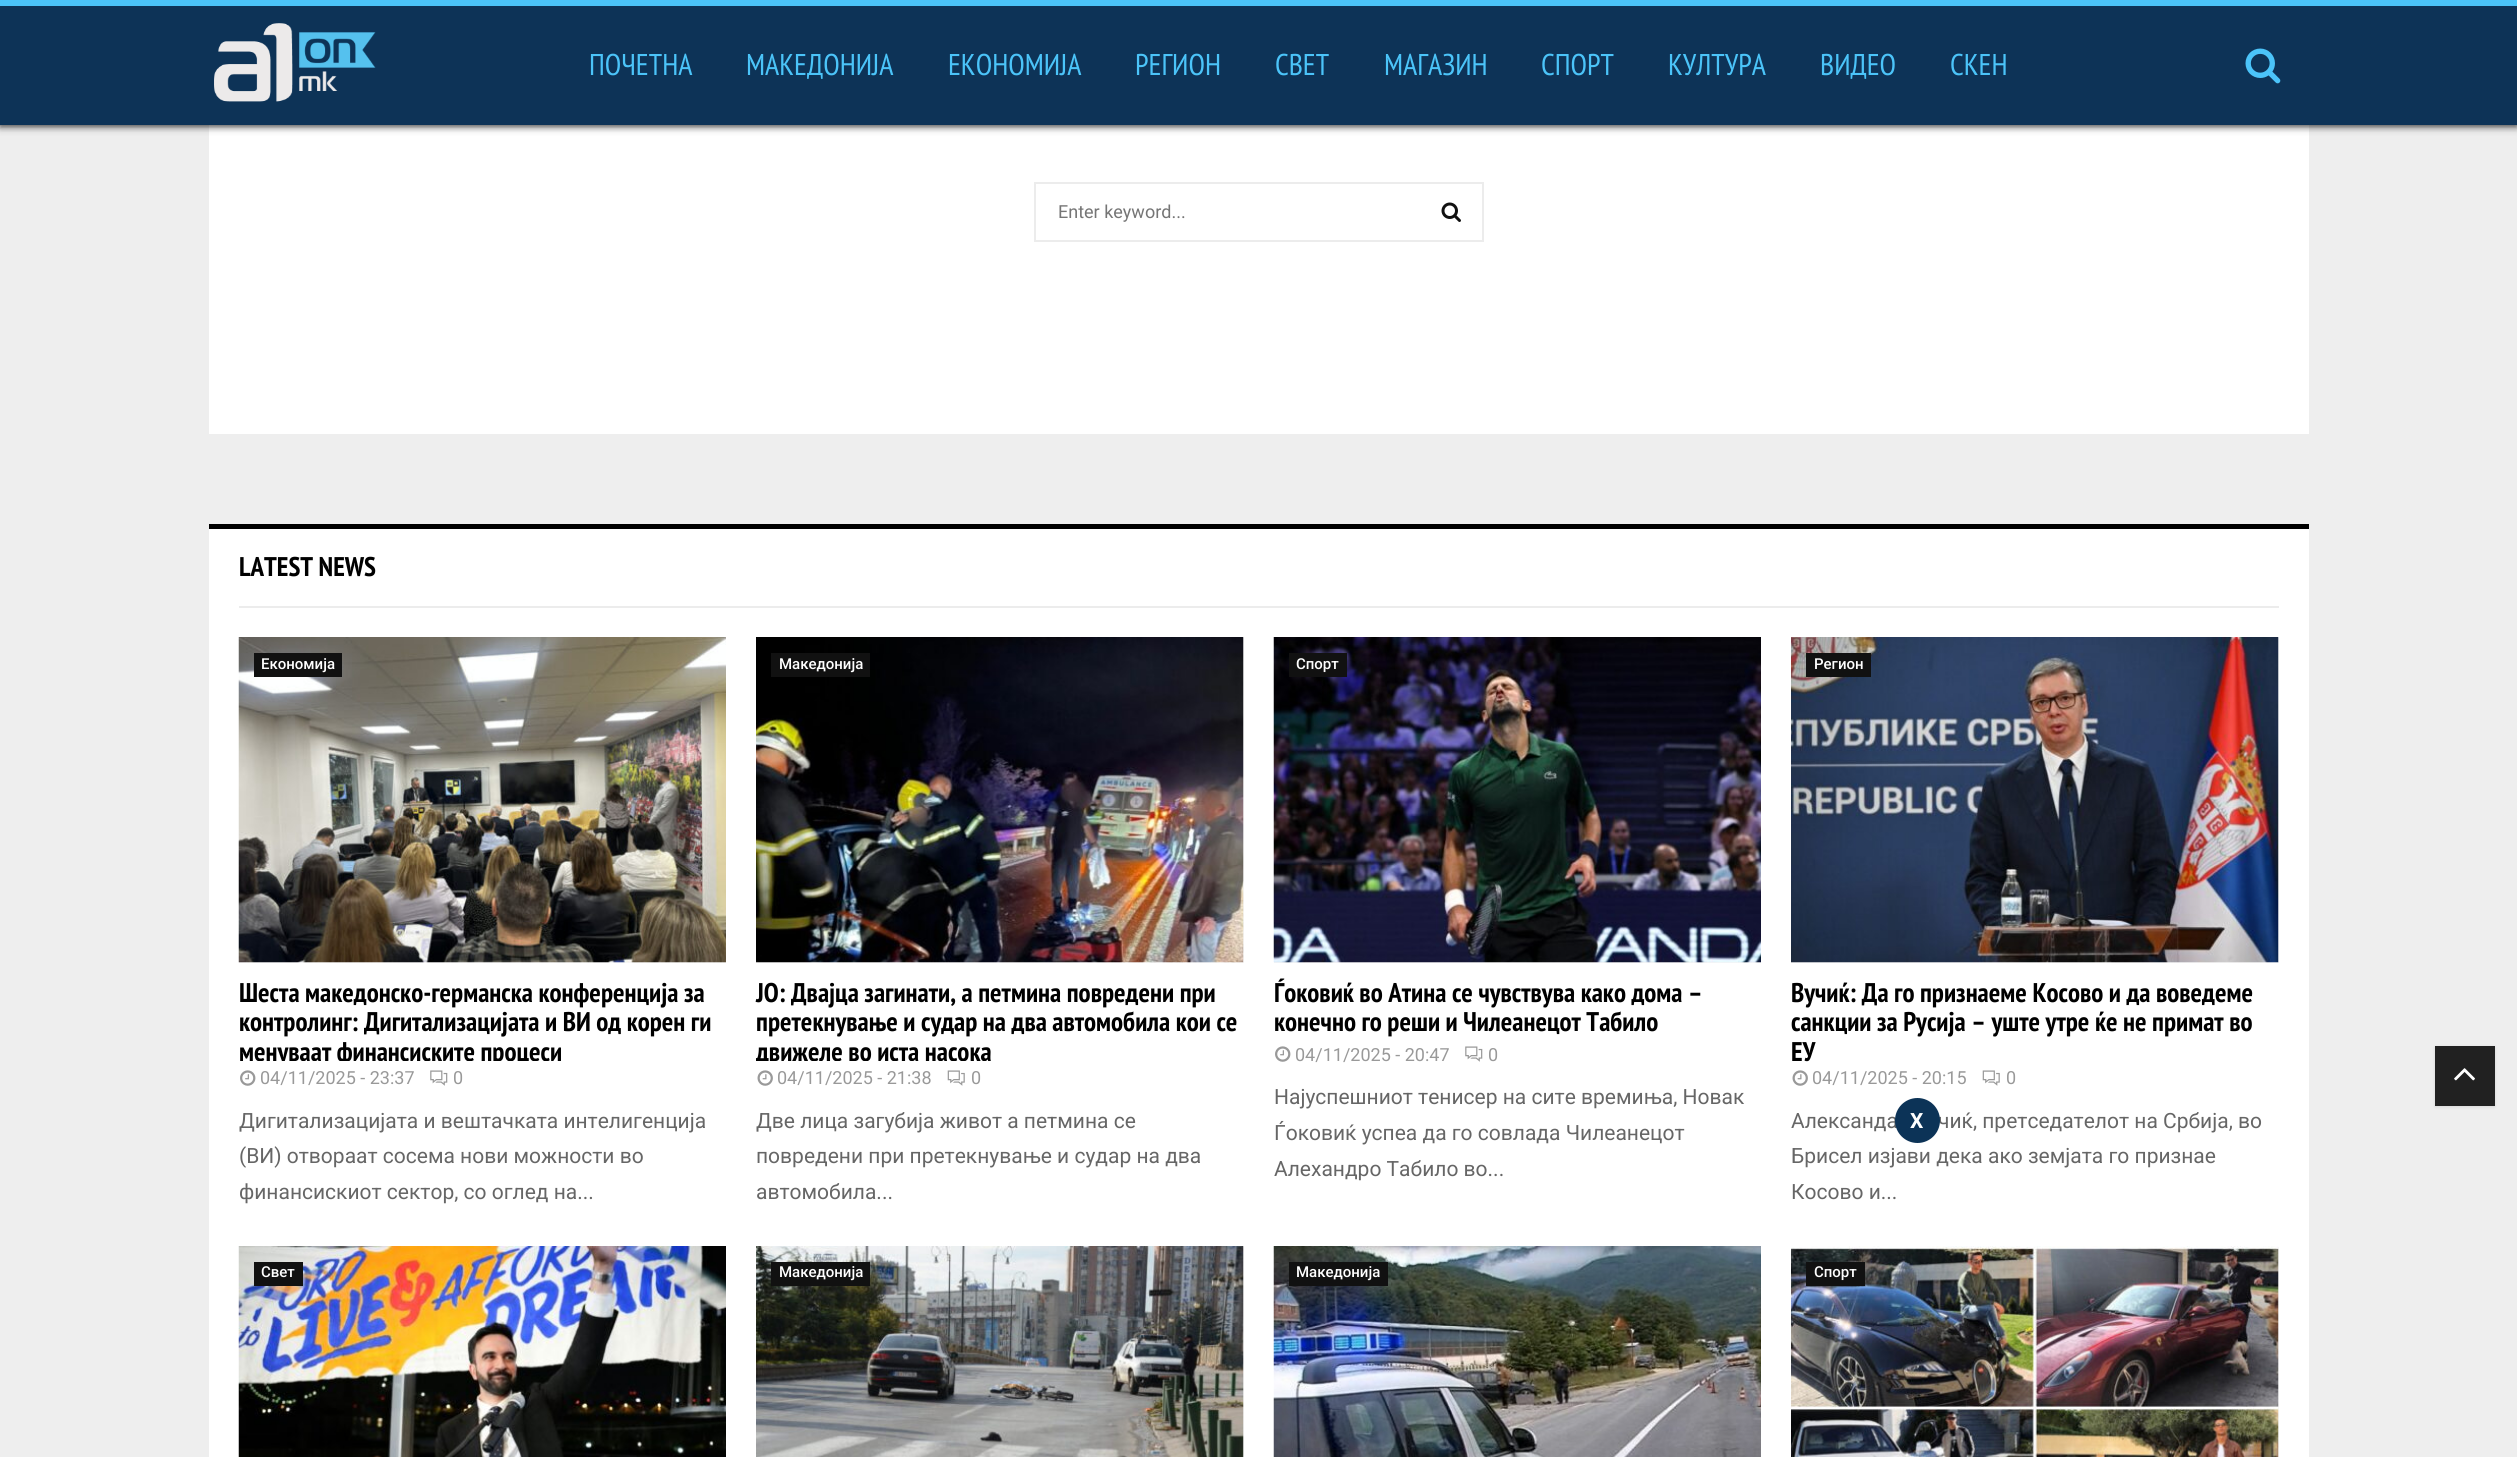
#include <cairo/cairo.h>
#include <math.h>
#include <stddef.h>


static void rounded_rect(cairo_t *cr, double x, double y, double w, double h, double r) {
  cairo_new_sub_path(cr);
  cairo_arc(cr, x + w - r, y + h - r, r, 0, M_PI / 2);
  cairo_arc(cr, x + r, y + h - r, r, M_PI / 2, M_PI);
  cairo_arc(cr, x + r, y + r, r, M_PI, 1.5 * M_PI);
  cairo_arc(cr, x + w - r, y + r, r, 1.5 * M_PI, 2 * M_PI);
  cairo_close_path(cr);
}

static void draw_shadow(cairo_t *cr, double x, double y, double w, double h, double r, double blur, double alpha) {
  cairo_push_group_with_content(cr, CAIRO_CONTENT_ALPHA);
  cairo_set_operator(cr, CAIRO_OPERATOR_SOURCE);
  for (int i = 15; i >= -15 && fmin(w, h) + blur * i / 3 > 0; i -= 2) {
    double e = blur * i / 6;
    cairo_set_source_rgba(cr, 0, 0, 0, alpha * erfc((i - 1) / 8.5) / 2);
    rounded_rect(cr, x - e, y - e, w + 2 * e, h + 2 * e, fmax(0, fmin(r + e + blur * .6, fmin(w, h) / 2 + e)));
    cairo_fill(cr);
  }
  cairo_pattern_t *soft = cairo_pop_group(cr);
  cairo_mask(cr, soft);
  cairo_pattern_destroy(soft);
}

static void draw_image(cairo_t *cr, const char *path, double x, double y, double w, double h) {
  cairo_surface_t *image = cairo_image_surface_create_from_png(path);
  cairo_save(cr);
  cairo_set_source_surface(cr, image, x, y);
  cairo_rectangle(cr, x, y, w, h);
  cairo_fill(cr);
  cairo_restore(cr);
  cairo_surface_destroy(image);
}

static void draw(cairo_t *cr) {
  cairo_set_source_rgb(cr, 238 / 255.0, 238 / 255.0, 238 / 255.0);
  cairo_paint(cr);
  cairo_set_source_rgb(cr, 1, 1, 1);
  cairo_rectangle(cr, 209, 125, 2100, 309);
  cairo_fill(cr);
  cairo_set_source_rgb(cr, 0, 0, 0);
  draw_shadow(cr, 0, 6, 2517, 120, 0, 4, 0.88);
  cairo_set_source_rgb(cr, 13 / 255.0, 51 / 255.0, 87 / 255.0);
  cairo_rectangle(cr, 0, 6, 2517, 119);
  cairo_fill(cr);
  cairo_set_source_rgb(cr, 75 / 255.0, 196 / 255.0, 249 / 255.0);
  cairo_rectangle(cr, 0, 0, 2517, 6);
  cairo_fill(cr);
  draw_image(cr, "images/1.png", 214, 23, 162, 79);
  draw_image(cr, "images/2.png", 2245, 48, 36, 36);
  cairo_rectangle(cr, 1035, 183, 448, 58);
  cairo_set_source_rgb(cr, 236 / 255.0, 236 / 255.0, 236 / 255.0);
  cairo_stroke(cr);
  draw_image(cr, "images/3.png", 1441, 202, 20, 20);
  cairo_set_source_rgb(cr, 1, 1, 1);
  cairo_rectangle(cr, 209, 529, 2100, 928);
  cairo_fill(cr);
  cairo_set_source_rgb(cr, 236 / 255.0, 236 / 255.0, 236 / 255.0);
  cairo_rectangle(cr, 239, 606, 2040, 2);
  cairo_fill(cr);
  cairo_set_source_rgb(cr, 0, 0, 0);
  cairo_rectangle(cr, 209, 524, 2100, 5);
  cairo_fill(cr);
  cairo_set_source_rgb(cr, 245 / 255.0, 245 / 255.0, 245 / 255.0);
  cairo_rectangle(cr, 239, 962, 487, 1);
  cairo_fill(cr);
  draw_image(cr, "images/4.png", 238, 637, 488, 326);
  cairo_set_source_rgb(cr, 17 / 255.0, 17 / 255.0, 17 / 255.0);
  cairo_rectangle(cr, 254, 653, 88, 24);
  cairo_fill(cr);
  draw_image(cr, "images/5.png", 240, 1070, 16, 16);
  draw_image(cr, "images/6.png", 430, 1070, 18, 16);
  cairo_set_source_rgb(cr, 245 / 255.0, 245 / 255.0, 245 / 255.0);
  cairo_rectangle(cr, 756, 638, 488, 325);
  cairo_fill(cr);
  draw_image(cr, "images/7.png", 756, 637, 488, 326);
  cairo_set_source_rgb(cr, 17 / 255.0, 17 / 255.0, 17 / 255.0);
  cairo_rectangle(cr, 771, 653, 99, 24);
  cairo_fill(cr);
  draw_image(cr, "images/8.png", 757, 1070, 16, 16);
  draw_image(cr, "images/9.png", 947, 1070, 18, 16);
  cairo_set_source_rgb(cr, 245 / 255.0, 245 / 255.0, 245 / 255.0);
  cairo_rectangle(cr, 1274, 962, 487, 1);
  cairo_fill(cr);
  draw_image(cr, "images/10.png", 1273, 637, 488, 326);
  cairo_set_source_rgb(cr, 17 / 255.0, 17 / 255.0, 17 / 255.0);
  cairo_rectangle(cr, 1289, 653, 58, 24);
  cairo_fill(cr);
  draw_image(cr, "images/5.png", 1275, 1046, 16, 16);
  draw_image(cr, "images/6.png", 1465, 1046, 18, 16);
  cairo_set_source_rgb(cr, 245 / 255.0, 245 / 255.0, 245 / 255.0);
  cairo_rectangle(cr, 1791, 638, 488, 325);
  cairo_fill(cr);
  draw_image(cr, "images/11.png", 1791, 637, 488, 326);
  cairo_set_source_rgb(cr, 17 / 255.0, 17 / 255.0, 17 / 255.0);
  cairo_rectangle(cr, 1806, 653, 65, 24);
  cairo_fill(cr);
  draw_image(cr, "images/8.png", 1792, 1070, 16, 16);
  draw_image(cr, "images/9.png", 1982, 1070, 18, 16);
  draw_image(cr, "images/12.png", 238, 1246, 488, 211);
  cairo_rectangle(cr, 254, 1262, 49, 24);
  cairo_fill(cr);
  cairo_set_source_rgb(cr, 245 / 255.0, 245 / 255.0, 245 / 255.0);
  cairo_rectangle(cr, 1243, 1247, 1, 210);
  cairo_fill(cr);
  draw_image(cr, "images/13.png", 756, 1246, 488, 211);
  cairo_set_source_rgb(cr, 17 / 255.0, 17 / 255.0, 17 / 255.0);
  cairo_rectangle(cr, 771, 1262, 99, 24);
  cairo_fill(cr);
  draw_image(cr, "images/14.png", 1273, 1246, 488, 211);
  cairo_rectangle(cr, 1289, 1262, 99, 24);
  cairo_fill(cr);
  cairo_set_source_rgb(cr, 245 / 255.0, 245 / 255.0, 245 / 255.0);
  cairo_rectangle(cr, 2278, 1247, 1, 210);
  cairo_fill(cr);
  draw_image(cr, "images/15.png", 1791, 1246, 488, 211);
  cairo_set_source_rgb(cr, 17 / 255.0, 17 / 255.0, 17 / 255.0);
  cairo_rectangle(cr, 1806, 1262, 59, 24);
  cairo_fill(cr);
  cairo_set_source_rgb(cr, 0, 0, 0);
  draw_shadow(cr, 2435, 1047, 60, 60, 0, 1.5, 0.1);
  cairo_set_source_rgb(cr, 33 / 255.0, 33 / 255.0, 33 / 255.0);
  cairo_rectangle(cr, 2435, 1046, 60, 60);
  cairo_fill(cr);
  draw_image(cr, "images/16.png", 2454, 1068, 21, 13);
  cairo_select_font_face(cr, "PT Sans Narrow", CAIRO_FONT_SLANT_NORMAL, CAIRO_FONT_WEIGHT_NORMAL);
  cairo_set_font_size(cr, 30);
  cairo_set_source_rgb(cr, 75 / 255.0, 196 / 255.0, 249 / 255.0);
  cairo_move_to(cr, 589, 75);
  cairo_show_text(cr, "ПОЧЕТНА");
  cairo_move_to(cr, 746, 75);
  cairo_show_text(cr, "МАКЕДОНИЈА");
  cairo_move_to(cr, 948, 75);
  cairo_show_text(cr, "ЕКОНОМИЈА");
  cairo_move_to(cr, 1135, 75);
  cairo_show_text(cr, "РЕГИОН");
  cairo_move_to(cr, 1275, 75);
  cairo_show_text(cr, "СВЕТ");
  cairo_move_to(cr, 1384, 75);
  cairo_show_text(cr, "МАГАЗИН");
  cairo_move_to(cr, 1541, 75);
  cairo_show_text(cr, "СПОРТ");
  cairo_move_to(cr, 1668, 75);
  cairo_show_text(cr, "КУЛТУРА");
  cairo_move_to(cr, 1820, 75);
  cairo_show_text(cr, "ВИДЕО");
  cairo_move_to(cr, 1950, 75);
  cairo_show_text(cr, "СКЕН");
  cairo_select_font_face(cr, "Roboto", CAIRO_FONT_SLANT_NORMAL, CAIRO_FONT_WEIGHT_NORMAL);
  cairo_set_font_size(cr, 18);
  cairo_set_source_rgb(cr, 117 / 255.0, 117 / 255.0, 117 / 255.0);
  cairo_move_to(cr, 1058, 218);
  cairo_show_text(cr, "Enter keyword...");
  cairo_select_font_face(cr, "PT Sans Narrow", CAIRO_FONT_SLANT_NORMAL, CAIRO_FONT_WEIGHT_BOLD);
  cairo_set_font_size(cr, 27);
  cairo_set_source_rgb(cr, 0, 0, 0);
  cairo_move_to(cr, 239, 576);
  cairo_show_text(cr, "LATEST NEWS");
  cairo_select_font_face(cr, "Roboto Medium", CAIRO_FONT_SLANT_NORMAL, CAIRO_FONT_WEIGHT_NORMAL);
  cairo_set_font_size(cr, 15);
  cairo_set_source_rgb(cr, 1, 1, 1);
  cairo_move_to(cr, 261, 669);
  cairo_show_text(cr, "Економија");
  cairo_select_font_face(cr, "PT Sans Narrow", CAIRO_FONT_SLANT_NORMAL, CAIRO_FONT_WEIGHT_BOLD);
  cairo_set_font_size(cr, 27);
  cairo_set_source_rgb(cr, 0, 0, 0);
  cairo_move_to(cr, 239, 1002);
  cairo_show_text(cr, "Шеста македонско-германска конференција за");
  cairo_move_to(cr, 239, 1031);
  cairo_show_text(cr, "контролинг: Дигитализацијата и ВИ од корен ги");
  cairo_save(cr);
  cairo_rectangle(cr, 239, 978, 487, 83);
  cairo_clip(cr);
  cairo_move_to(cr, 239, 1061);
  cairo_show_text(cr, "менуваат финансиските процеси");
  cairo_restore(cr);
  cairo_select_font_face(cr, "Roboto", CAIRO_FONT_SLANT_NORMAL, CAIRO_FONT_WEIGHT_NORMAL);
  cairo_set_font_size(cr, 18);
  cairo_set_source_rgb(cr, 153 / 255.0, 153 / 255.0, 153 / 255.0);
  cairo_move_to(cr, 260, 1084);
  cairo_show_text(cr, "04/11/2025 - 23:37");
  cairo_move_to(cr, 453, 1084);
  cairo_show_text(cr, "0");
  cairo_set_font_size(cr, 21);
  cairo_set_source_rgb(cr, 102 / 255.0, 102 / 255.0, 102 / 255.0);
  cairo_move_to(cr, 239, 1128);
  cairo_show_text(cr, "Дигитализацијата и вештачката интелигенција");
  cairo_move_to(cr, 239, 1163);
  cairo_show_text(cr, "(ВИ) отвораат сосема нови можности во");
  cairo_move_to(cr, 239, 1199);
  cairo_show_text(cr, "финансискиот сектор, со оглед на...");
  cairo_select_font_face(cr, "Roboto Medium", CAIRO_FONT_SLANT_NORMAL, CAIRO_FONT_WEIGHT_NORMAL);
  cairo_set_font_size(cr, 15);
  cairo_set_source_rgb(cr, 1, 1, 1);
  cairo_move_to(cr, 779, 669);
  cairo_show_text(cr, "Македонија");
  cairo_select_font_face(cr, "PT Sans Narrow", CAIRO_FONT_SLANT_NORMAL, CAIRO_FONT_WEIGHT_BOLD);
  cairo_set_font_size(cr, 27);
  cairo_set_source_rgb(cr, 0, 0, 0);
  cairo_move_to(cr, 756, 1002);
  cairo_show_text(cr, "ЈО: Двајца загинати, а петмина повредени при");
  cairo_move_to(cr, 756, 1031);
  cairo_show_text(cr, "претекнување и судар на два автомобила кои се");
  cairo_save(cr);
  cairo_rectangle(cr, 756, 978, 488, 83);
  cairo_clip(cr);
  cairo_move_to(cr, 756, 1061);
  cairo_show_text(cr, "движеле во иста насока");
  cairo_restore(cr);
  cairo_select_font_face(cr, "Roboto", CAIRO_FONT_SLANT_NORMAL, CAIRO_FONT_WEIGHT_NORMAL);
  cairo_set_font_size(cr, 18);
  cairo_set_source_rgb(cr, 153 / 255.0, 153 / 255.0, 153 / 255.0);
  cairo_move_to(cr, 777, 1084);
  cairo_show_text(cr, "04/11/2025 - 21:38");
  cairo_move_to(cr, 971, 1084);
  cairo_show_text(cr, "0");
  cairo_set_font_size(cr, 21);
  cairo_set_source_rgb(cr, 102 / 255.0, 102 / 255.0, 102 / 255.0);
  cairo_move_to(cr, 756, 1128);
  cairo_show_text(cr, "Две лица загубија живот а петмина се");
  cairo_move_to(cr, 756, 1163);
  cairo_show_text(cr, "повредени при претекнување и судар на два");
  cairo_move_to(cr, 756, 1199);
  cairo_show_text(cr, "автомобила...");
  cairo_select_font_face(cr, "Roboto Medium", CAIRO_FONT_SLANT_NORMAL, CAIRO_FONT_WEIGHT_NORMAL);
  cairo_set_font_size(cr, 15);
  cairo_set_source_rgb(cr, 1, 1, 1);
  cairo_move_to(cr, 1296, 669);
  cairo_show_text(cr, "Спорт");
  cairo_select_font_face(cr, "PT Sans Narrow", CAIRO_FONT_SLANT_NORMAL, CAIRO_FONT_WEIGHT_BOLD);
  cairo_set_font_size(cr, 27);
  cairo_set_source_rgb(cr, 0, 0, 0);
  cairo_move_to(cr, 1274, 1002);
  cairo_show_text(cr, "Ѓоковиќ во Атина се чувствува како дома –");
  cairo_move_to(cr, 1274, 1031);
  cairo_show_text(cr, "конечно го реши и Чилеанецот Табило");
  cairo_select_font_face(cr, "Roboto", CAIRO_FONT_SLANT_NORMAL, CAIRO_FONT_WEIGHT_NORMAL);
  cairo_set_font_size(cr, 18);
  cairo_set_source_rgb(cr, 153 / 255.0, 153 / 255.0, 153 / 255.0);
  cairo_move_to(cr, 1295, 1061);
  cairo_show_text(cr, "04/11/2025 - 20:47");
  cairo_move_to(cr, 1488, 1061);
  cairo_show_text(cr, "0");
  cairo_set_font_size(cr, 21);
  cairo_set_source_rgb(cr, 102 / 255.0, 102 / 255.0, 102 / 255.0);
  cairo_move_to(cr, 1274, 1104);
  cairo_show_text(cr, "Најуспешниот тенисер на сите времиња, Новак");
  cairo_move_to(cr, 1274, 1140);
  cairo_show_text(cr, "Ѓоковиќ успеа да го совлада Чилеанецот");
  cairo_move_to(cr, 1274, 1176);
  cairo_show_text(cr, "Алехандро Табило во...");
  cairo_select_font_face(cr, "Roboto Medium", CAIRO_FONT_SLANT_NORMAL, CAIRO_FONT_WEIGHT_NORMAL);
  cairo_set_font_size(cr, 15);
  cairo_set_source_rgb(cr, 1, 1, 1);
  cairo_move_to(cr, 1814, 669);
  cairo_show_text(cr, "Регион");
  cairo_select_font_face(cr, "PT Sans Narrow", CAIRO_FONT_SLANT_NORMAL, CAIRO_FONT_WEIGHT_BOLD);
  cairo_set_font_size(cr, 27);
  cairo_set_source_rgb(cr, 0, 0, 0);
  cairo_move_to(cr, 1791, 1002);
  cairo_show_text(cr, "Вучиќ: Да го признаеме Косово и да воведеме");
  cairo_move_to(cr, 1791, 1031);
  cairo_show_text(cr, "санкции за Русија – уште утре ќе не примат во");
  cairo_move_to(cr, 1791, 1061);
  cairo_show_text(cr, "ЕУ");
  cairo_select_font_face(cr, "Roboto", CAIRO_FONT_SLANT_NORMAL, CAIRO_FONT_WEIGHT_NORMAL);
  cairo_set_font_size(cr, 18);
  cairo_set_source_rgb(cr, 153 / 255.0, 153 / 255.0, 153 / 255.0);
  cairo_move_to(cr, 1812, 1084);
  cairo_show_text(cr, "04/11/2025 - 20:15");
  cairo_move_to(cr, 2006, 1084);
  cairo_show_text(cr, "0");
  cairo_set_font_size(cr, 21);
  cairo_set_source_rgb(cr, 102 / 255.0, 102 / 255.0, 102 / 255.0);
  cairo_move_to(cr, 1791, 1128);
  cairo_show_text(cr, "Александа");
  cairo_move_to(cr, 1938, 1128);
  cairo_show_text(cr, "чиќ, претседателот на Србија, во");
  cairo_move_to(cr, 1791, 1163);
  cairo_show_text(cr, "Брисел изјави дека ако земјата го признае");
  cairo_move_to(cr, 1791, 1199);
  cairo_show_text(cr, "Косово и...");
  cairo_select_font_face(cr, "Roboto Medium", CAIRO_FONT_SLANT_NORMAL, CAIRO_FONT_WEIGHT_NORMAL);
  cairo_set_font_size(cr, 15);
  cairo_set_source_rgb(cr, 1, 1, 1);
  cairo_move_to(cr, 261, 1277);
  cairo_show_text(cr, "Свет");
  cairo_move_to(cr, 779, 1277);
  cairo_show_text(cr, "Македонија");
  cairo_move_to(cr, 1296, 1277);
  cairo_show_text(cr, "Македонија");
  cairo_move_to(cr, 1814, 1277);
  cairo_show_text(cr, "Спорт");
  cairo_set_source_rgb(cr, 12 / 255.0, 51 / 255.0, 87 / 255.0);
  cairo_new_path(cr);
  cairo_arc(cr, 1917.5, 1120.5, 22.5, 0, 2 * M_PI);
  cairo_fill(cr);
  cairo_select_font_face(cr, "Roboto", CAIRO_FONT_SLANT_NORMAL, CAIRO_FONT_WEIGHT_BOLD);
  cairo_set_font_size(cr, 21);
  cairo_set_source_rgb(cr, 1, 1, 1);
  cairo_move_to(cr, 1910, 1128);
  cairo_show_text(cr, "X");
}

int main(void) {
  cairo_surface_t *surface = cairo_image_surface_create(CAIRO_FORMAT_RGB24, 2517, 1457);
  cairo_t *cr = cairo_create(surface);
  cairo_font_options_t *options = cairo_font_options_create();
  cairo_font_options_set_hint_metrics(options, CAIRO_HINT_METRICS_OFF);
  cairo_font_options_set_hint_style(options, CAIRO_HINT_STYLE_NONE);
  cairo_set_font_options(cr, options);
  cairo_set_miter_limit(cr, 4);
  draw(cr);
  cairo_surface_write_to_png(surface, "out.png");
  cairo_font_options_destroy(options);
  cairo_destroy(cr);
  cairo_surface_destroy(surface);
  return 0;
}
